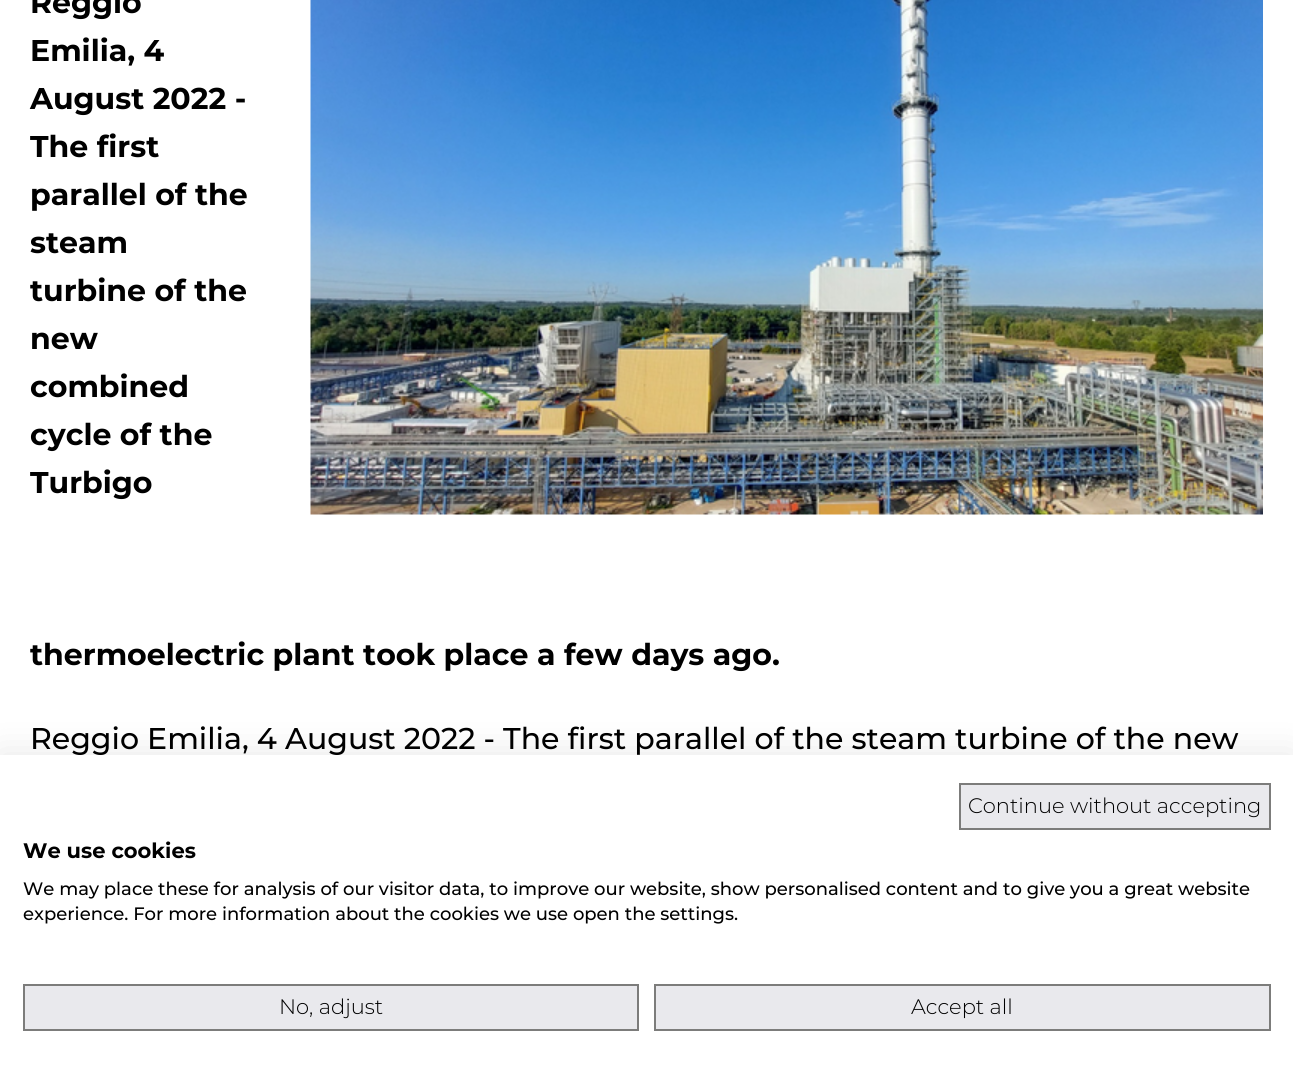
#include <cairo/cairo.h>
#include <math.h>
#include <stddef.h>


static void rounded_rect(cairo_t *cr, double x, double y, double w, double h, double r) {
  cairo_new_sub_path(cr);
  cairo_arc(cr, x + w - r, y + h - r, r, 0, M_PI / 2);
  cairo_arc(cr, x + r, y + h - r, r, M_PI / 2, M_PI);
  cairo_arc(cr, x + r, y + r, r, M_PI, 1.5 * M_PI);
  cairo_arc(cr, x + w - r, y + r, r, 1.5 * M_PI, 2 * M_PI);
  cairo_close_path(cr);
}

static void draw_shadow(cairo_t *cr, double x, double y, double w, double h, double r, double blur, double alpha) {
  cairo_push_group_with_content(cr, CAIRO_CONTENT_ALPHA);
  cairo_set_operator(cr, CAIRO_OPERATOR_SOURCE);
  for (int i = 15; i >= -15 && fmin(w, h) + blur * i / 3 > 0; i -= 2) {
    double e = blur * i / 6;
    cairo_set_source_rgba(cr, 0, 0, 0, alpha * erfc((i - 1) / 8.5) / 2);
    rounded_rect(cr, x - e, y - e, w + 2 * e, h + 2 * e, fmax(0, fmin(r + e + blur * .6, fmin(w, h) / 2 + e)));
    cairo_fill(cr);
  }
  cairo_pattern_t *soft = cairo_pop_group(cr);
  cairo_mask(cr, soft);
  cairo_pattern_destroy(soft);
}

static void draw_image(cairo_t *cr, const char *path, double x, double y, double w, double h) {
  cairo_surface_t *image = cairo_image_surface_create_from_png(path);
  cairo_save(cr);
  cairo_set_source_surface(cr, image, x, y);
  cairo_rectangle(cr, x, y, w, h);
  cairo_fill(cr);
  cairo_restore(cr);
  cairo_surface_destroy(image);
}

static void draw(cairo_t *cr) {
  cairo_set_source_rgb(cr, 1, 1, 1);
  cairo_paint(cr);
  draw_image(cr, "images/1.png", 310, 0, 953, 515);
  cairo_set_source_rgb(cr, 0, 0, 0);
  draw_shadow(cr, 0, 755, 1293, 316, 0, 18, 0.1);
  cairo_set_source_rgb(cr, 1, 1, 1);
  cairo_rectangle(cr, 0, 755, 1293, 316);
  cairo_fill(cr);
  cairo_set_source_rgb(cr, 233 / 255.0, 233 / 255.0, 237 / 255.0);
  cairo_rectangle(cr, 960, 784, 310, 45);
  cairo_fill_preserve(cr);
  cairo_set_source_rgb(cr, 124 / 255.0, 124 / 255.0, 123 / 255.0);
  cairo_stroke(cr);
  cairo_set_source_rgb(cr, 233 / 255.0, 233 / 255.0, 237 / 255.0);
  cairo_rectangle(cr, 24, 985, 614, 45);
  cairo_fill_preserve(cr);
  cairo_set_source_rgb(cr, 124 / 255.0, 124 / 255.0, 123 / 255.0);
  cairo_stroke(cr);
  cairo_set_source_rgb(cr, 233 / 255.0, 233 / 255.0, 237 / 255.0);
  cairo_rectangle(cr, 655, 985, 615, 45);
  cairo_fill_preserve(cr);
  cairo_set_source_rgb(cr, 124 / 255.0, 124 / 255.0, 123 / 255.0);
  cairo_stroke(cr);
  cairo_select_font_face(cr, "Montserrat", CAIRO_FONT_SLANT_NORMAL, CAIRO_FONT_WEIGHT_BOLD);
  cairo_set_font_size(cr, 30);
  cairo_set_source_rgb(cr, 0, 0, 0);
  cairo_move_to(cr, 30, 13);
  cairo_show_text(cr, "Reggio");
  cairo_move_to(cr, 30, 61);
  cairo_show_text(cr, "Emilia, 4");
  cairo_move_to(cr, 30, 109);
  cairo_show_text(cr, "August 2022 -");
  cairo_move_to(cr, 30, 157);
  cairo_show_text(cr, "The first");
  cairo_move_to(cr, 30, 205);
  cairo_show_text(cr, "parallel of the");
  cairo_move_to(cr, 30, 253);
  cairo_show_text(cr, "steam");
  cairo_move_to(cr, 30, 301);
  cairo_show_text(cr, "turbine of the");
  cairo_move_to(cr, 30, 349);
  cairo_show_text(cr, "new");
  cairo_move_to(cr, 30, 397);
  cairo_show_text(cr, "combined");
  cairo_move_to(cr, 30, 445);
  cairo_show_text(cr, "cycle of the");
  cairo_move_to(cr, 30, 493);
  cairo_show_text(cr, "Turbigo");
  cairo_move_to(cr, 30, 665);
  cairo_show_text(cr, "thermoelectric plant took place a few days ago.");
  cairo_select_font_face(cr, "Montserrat Medium", CAIRO_FONT_SLANT_NORMAL, CAIRO_FONT_WEIGHT_NORMAL);
  cairo_move_to(cr, 30, 749);
  cairo_show_text(cr, "Reggio Emilia, 4 August 2022 - The first parallel of the steam turbine of the new");
  cairo_select_font_face(cr, "Montserrat Light", CAIRO_FONT_SLANT_NORMAL, CAIRO_FONT_WEIGHT_NORMAL);
  cairo_set_font_size(cr, 21);
  cairo_move_to(cr, 968, 813);
  cairo_show_text(cr, "Continue without accepting");
  cairo_select_font_face(cr, "Montserrat", CAIRO_FONT_SLANT_NORMAL, CAIRO_FONT_WEIGHT_BOLD);
  cairo_move_to(cr, 23, 858);
  cairo_show_text(cr, "We use cookies");
  cairo_select_font_face(cr, "Montserrat Medium", CAIRO_FONT_SLANT_NORMAL, CAIRO_FONT_WEIGHT_NORMAL);
  cairo_set_font_size(cr, 18);
  cairo_move_to(cr, 23, 895);
  cairo_show_text(cr, "We may place these for analysis of our visitor data, to improve our website, show personalised content and to give you a great website");
  cairo_move_to(cr, 23, 920);
  cairo_show_text(cr, "experience. For more information about the cookies we use open the settings.");
  cairo_select_font_face(cr, "Montserrat Light", CAIRO_FONT_SLANT_NORMAL, CAIRO_FONT_WEIGHT_NORMAL);
  cairo_set_font_size(cr, 21);
  cairo_move_to(cr, 279, 1014);
  cairo_show_text(cr, "No, adjust");
  cairo_move_to(cr, 911, 1014);
  cairo_show_text(cr, "Accept all");
}

int main(void) {
  cairo_surface_t *surface = cairo_image_surface_create(CAIRO_FORMAT_RGB24, 1293, 1071);
  cairo_t *cr = cairo_create(surface);
  cairo_font_options_t *options = cairo_font_options_create();
  cairo_font_options_set_hint_metrics(options, CAIRO_HINT_METRICS_OFF);
  cairo_font_options_set_hint_style(options, CAIRO_HINT_STYLE_NONE);
  cairo_set_font_options(cr, options);
  cairo_set_miter_limit(cr, 4);
  draw(cr);
  cairo_surface_write_to_png(surface, "out.png");
  cairo_font_options_destroy(options);
  cairo_destroy(cr);
  cairo_surface_destroy(surface);
  return 0;
}
